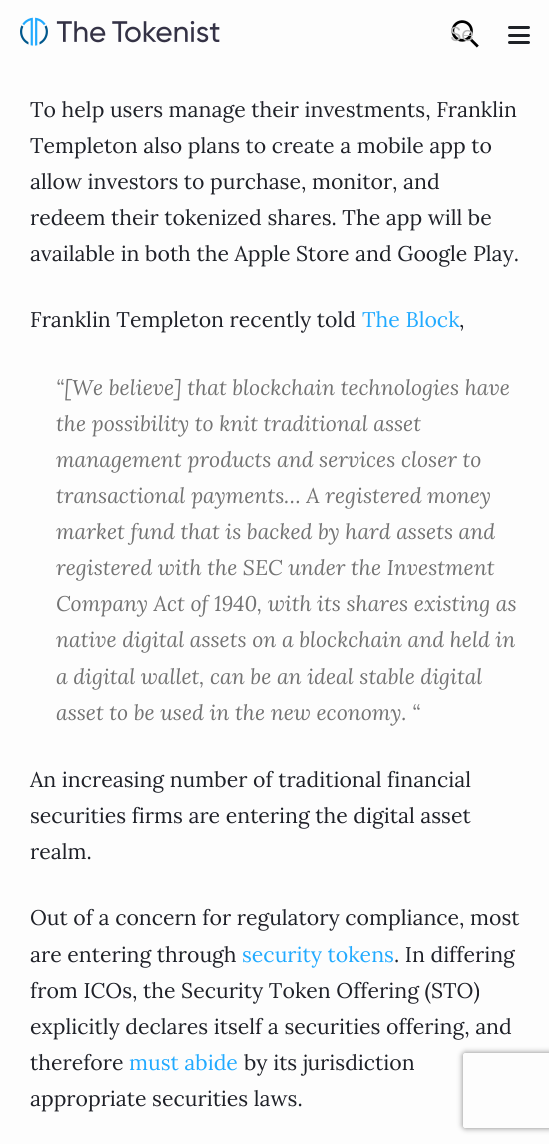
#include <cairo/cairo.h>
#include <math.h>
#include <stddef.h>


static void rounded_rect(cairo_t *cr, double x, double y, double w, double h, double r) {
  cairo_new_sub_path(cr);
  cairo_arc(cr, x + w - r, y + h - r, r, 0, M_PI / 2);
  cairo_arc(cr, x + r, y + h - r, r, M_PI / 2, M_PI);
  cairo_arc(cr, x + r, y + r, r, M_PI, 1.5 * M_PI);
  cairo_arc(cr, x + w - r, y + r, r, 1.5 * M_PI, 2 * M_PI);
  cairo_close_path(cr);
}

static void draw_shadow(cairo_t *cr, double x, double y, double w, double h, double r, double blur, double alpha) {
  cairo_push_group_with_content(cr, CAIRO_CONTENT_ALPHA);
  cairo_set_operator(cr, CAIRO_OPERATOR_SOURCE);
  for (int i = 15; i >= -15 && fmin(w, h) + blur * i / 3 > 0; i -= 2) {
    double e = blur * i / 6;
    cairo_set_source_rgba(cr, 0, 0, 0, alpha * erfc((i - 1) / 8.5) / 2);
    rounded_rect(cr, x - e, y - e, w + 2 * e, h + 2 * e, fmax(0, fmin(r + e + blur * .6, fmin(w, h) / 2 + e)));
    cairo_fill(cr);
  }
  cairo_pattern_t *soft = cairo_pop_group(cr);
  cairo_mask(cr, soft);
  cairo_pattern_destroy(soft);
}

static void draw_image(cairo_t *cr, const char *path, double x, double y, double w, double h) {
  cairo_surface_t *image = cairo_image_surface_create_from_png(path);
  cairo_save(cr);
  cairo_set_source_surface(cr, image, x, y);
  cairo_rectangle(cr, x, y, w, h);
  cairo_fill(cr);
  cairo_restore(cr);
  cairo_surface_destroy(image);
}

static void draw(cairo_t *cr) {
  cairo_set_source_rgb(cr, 253 / 255.0, 253 / 255.0, 253 / 255.0);
  cairo_paint(cr);
  draw_image(cr, "images/1.png", 20, 17, 200, 29);
  draw_image(cr, "images/2.png", 451, 20, 28, 28);
  cairo_set_source_rgb(cr, 31 / 255.0, 34 / 255.0, 39 / 255.0);
  rounded_rect(cr, 508, 26, 22, 3, 1.5);
  cairo_fill(cr);
  rounded_rect(cr, 508, 34, 22, 3, 1.5);
  cairo_fill(cr);
  rounded_rect(cr, 508, 41, 22, 3, 1.5);
  cairo_fill(cr);
  cairo_save(cr);
  cairo_set_fill_rule(cr, CAIRO_FILL_RULE_EVEN_ODD);
  cairo_new_path(cr);
  cairo_move_to(cr, 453, 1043);
  cairo_line_to(cr, 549, 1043);
  cairo_line_to(cr, 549, 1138);
  cairo_line_to(cr, 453, 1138);
  cairo_close_path(cr);
  cairo_move_to(cr, 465.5, 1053);
  cairo_line_to(cr, 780.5, 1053);
  cairo_curve_to(cr, 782, 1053, 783, 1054, 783, 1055.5);
  cairo_line_to(cr, 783, 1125.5);
  cairo_curve_to(cr, 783, 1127, 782, 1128, 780.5, 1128);
  cairo_line_to(cr, 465.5, 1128);
  cairo_curve_to(cr, 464, 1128, 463, 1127, 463, 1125.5);
  cairo_line_to(cr, 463, 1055.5);
  cairo_curve_to(cr, 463, 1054, 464, 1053, 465.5, 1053);
  cairo_close_path(cr);
  cairo_clip(cr);
  cairo_set_source_rgb(cr, 128 / 255.0, 128 / 255.0, 128 / 255.0);
  draw_shadow(cr, 463, 1053, 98, 75, 2.5, 3, 1);
  cairo_restore(cr);
  cairo_select_font_face(cr, "Poppins", CAIRO_FONT_SLANT_NORMAL, CAIRO_FONT_WEIGHT_NORMAL);
  cairo_set_font_size(cr, 20);
  cairo_set_source_rgb(cr, 182 / 255.0, 182 / 255.0, 182 / 255.0);
  cairo_move_to(cr, 450, 41);
  cairo_show_text(cr, "Se");
  cairo_select_font_face(cr, "Lora", CAIRO_FONT_SLANT_NORMAL, CAIRO_FONT_WEIGHT_NORMAL);
  cairo_set_font_size(cr, 21.25);
  cairo_set_source_rgb(cr, 31 / 255.0, 33 / 255.0, 40 / 255.0);
  cairo_move_to(cr, 30, 117);
  cairo_show_text(cr, "To help users manage their investments, Franklin");
  cairo_move_to(cr, 30, 153);
  cairo_show_text(cr, "Templeton also plans to create a mobile app to");
  cairo_move_to(cr, 30, 189);
  cairo_show_text(cr, "allow investors to purchase, monitor, and");
  cairo_move_to(cr, 30, 225);
  cairo_show_text(cr, "redeem their tokenized shares. The app will be");
  cairo_move_to(cr, 30, 261);
  cairo_show_text(cr, "available in both the Apple Store and Google Play.");
  cairo_move_to(cr, 30, 327);
  cairo_show_text(cr, "Franklin Templeton recently told");
  cairo_set_source_rgb(cr, 33 / 255.0, 170 / 255.0, 1);
  cairo_move_to(cr, 362, 327);
  cairo_show_text(cr, "The Block");
  cairo_set_source_rgb(cr, 31 / 255.0, 33 / 255.0, 40 / 255.0);
  cairo_move_to(cr, 459, 327);
  cairo_show_text(cr, ",");
  cairo_select_font_face(cr, "Lora", CAIRO_FONT_SLANT_ITALIC, CAIRO_FONT_WEIGHT_NORMAL);
  cairo_set_source_rgb(cr, 115 / 255.0, 115 / 255.0, 115 / 255.0);
  cairo_move_to(cr, 56, 395);
  cairo_show_text(cr, "“[We believe] that blockchain technologies have");
  cairo_move_to(cr, 56, 431);
  cairo_show_text(cr, "the possibility to knit traditional asset");
  cairo_move_to(cr, 56, 467);
  cairo_show_text(cr, "management products and services closer to");
  cairo_move_to(cr, 56, 503);
  cairo_show_text(cr, "transactional payments… A registered money");
  cairo_move_to(cr, 56, 539);
  cairo_show_text(cr, "market fund that is backed by hard assets and");
  cairo_move_to(cr, 56, 575);
  cairo_show_text(cr, "registered with the SEC under the Investment");
  cairo_move_to(cr, 56, 611);
  cairo_show_text(cr, "Company Act of 1940, with its shares existing as");
  cairo_move_to(cr, 56, 647);
  cairo_show_text(cr, "native digital assets on a blockchain and held in");
  cairo_move_to(cr, 56, 684);
  cairo_show_text(cr, "a digital wallet, can be an ideal stable digital");
  cairo_move_to(cr, 56, 720);
  cairo_show_text(cr, "asset to be used in the new economy. “");
  cairo_select_font_face(cr, "Lora", CAIRO_FONT_SLANT_NORMAL, CAIRO_FONT_WEIGHT_NORMAL);
  cairo_set_source_rgb(cr, 31 / 255.0, 33 / 255.0, 40 / 255.0);
  cairo_move_to(cr, 30, 787);
  cairo_show_text(cr, "An increasing number of traditional financial");
  cairo_move_to(cr, 30, 823);
  cairo_show_text(cr, "securities firms are entering the digital asset");
  cairo_move_to(cr, 30, 859);
  cairo_show_text(cr, "realm.");
  cairo_move_to(cr, 30, 925);
  cairo_show_text(cr, "Out of a concern for regulatory compliance, most");
  cairo_move_to(cr, 30, 962);
  cairo_show_text(cr, "are entering through");
  cairo_set_source_rgb(cr, 33 / 255.0, 170 / 255.0, 1);
  cairo_move_to(cr, 242, 962);
  cairo_show_text(cr, "security tokens");
  cairo_set_source_rgb(cr, 31 / 255.0, 33 / 255.0, 40 / 255.0);
  cairo_move_to(cr, 394, 962);
  cairo_show_text(cr, ". In differing");
  cairo_move_to(cr, 30, 998);
  cairo_show_text(cr, "from ICOs, the Security Token Offering (STO)");
  cairo_move_to(cr, 30, 1034);
  cairo_show_text(cr, "explicitly declares itself a securities offering, and");
  cairo_move_to(cr, 30, 1070);
  cairo_show_text(cr, "therefore");
  cairo_set_source_rgb(cr, 33 / 255.0, 170 / 255.0, 1);
  cairo_move_to(cr, 129, 1070);
  cairo_show_text(cr, "must abide");
  cairo_set_source_rgb(cr, 31 / 255.0, 33 / 255.0, 40 / 255.0);
  cairo_move_to(cr, 244, 1070);
  cairo_show_text(cr, "by its jurisdiction");
  cairo_move_to(cr, 30, 1106);
  cairo_show_text(cr, "appropriate securities laws.");
}

int main(void) {
  cairo_surface_t *surface = cairo_image_surface_create(CAIRO_FORMAT_RGB24, 549, 1144);
  cairo_t *cr = cairo_create(surface);
  cairo_font_options_t *options = cairo_font_options_create();
  cairo_font_options_set_hint_metrics(options, CAIRO_HINT_METRICS_OFF);
  cairo_font_options_set_hint_style(options, CAIRO_HINT_STYLE_NONE);
  cairo_set_font_options(cr, options);
  cairo_set_miter_limit(cr, 4);
  draw(cr);
  cairo_surface_write_to_png(surface, "out.png");
  cairo_font_options_destroy(options);
  cairo_destroy(cr);
  cairo_surface_destroy(surface);
  return 0;
}
